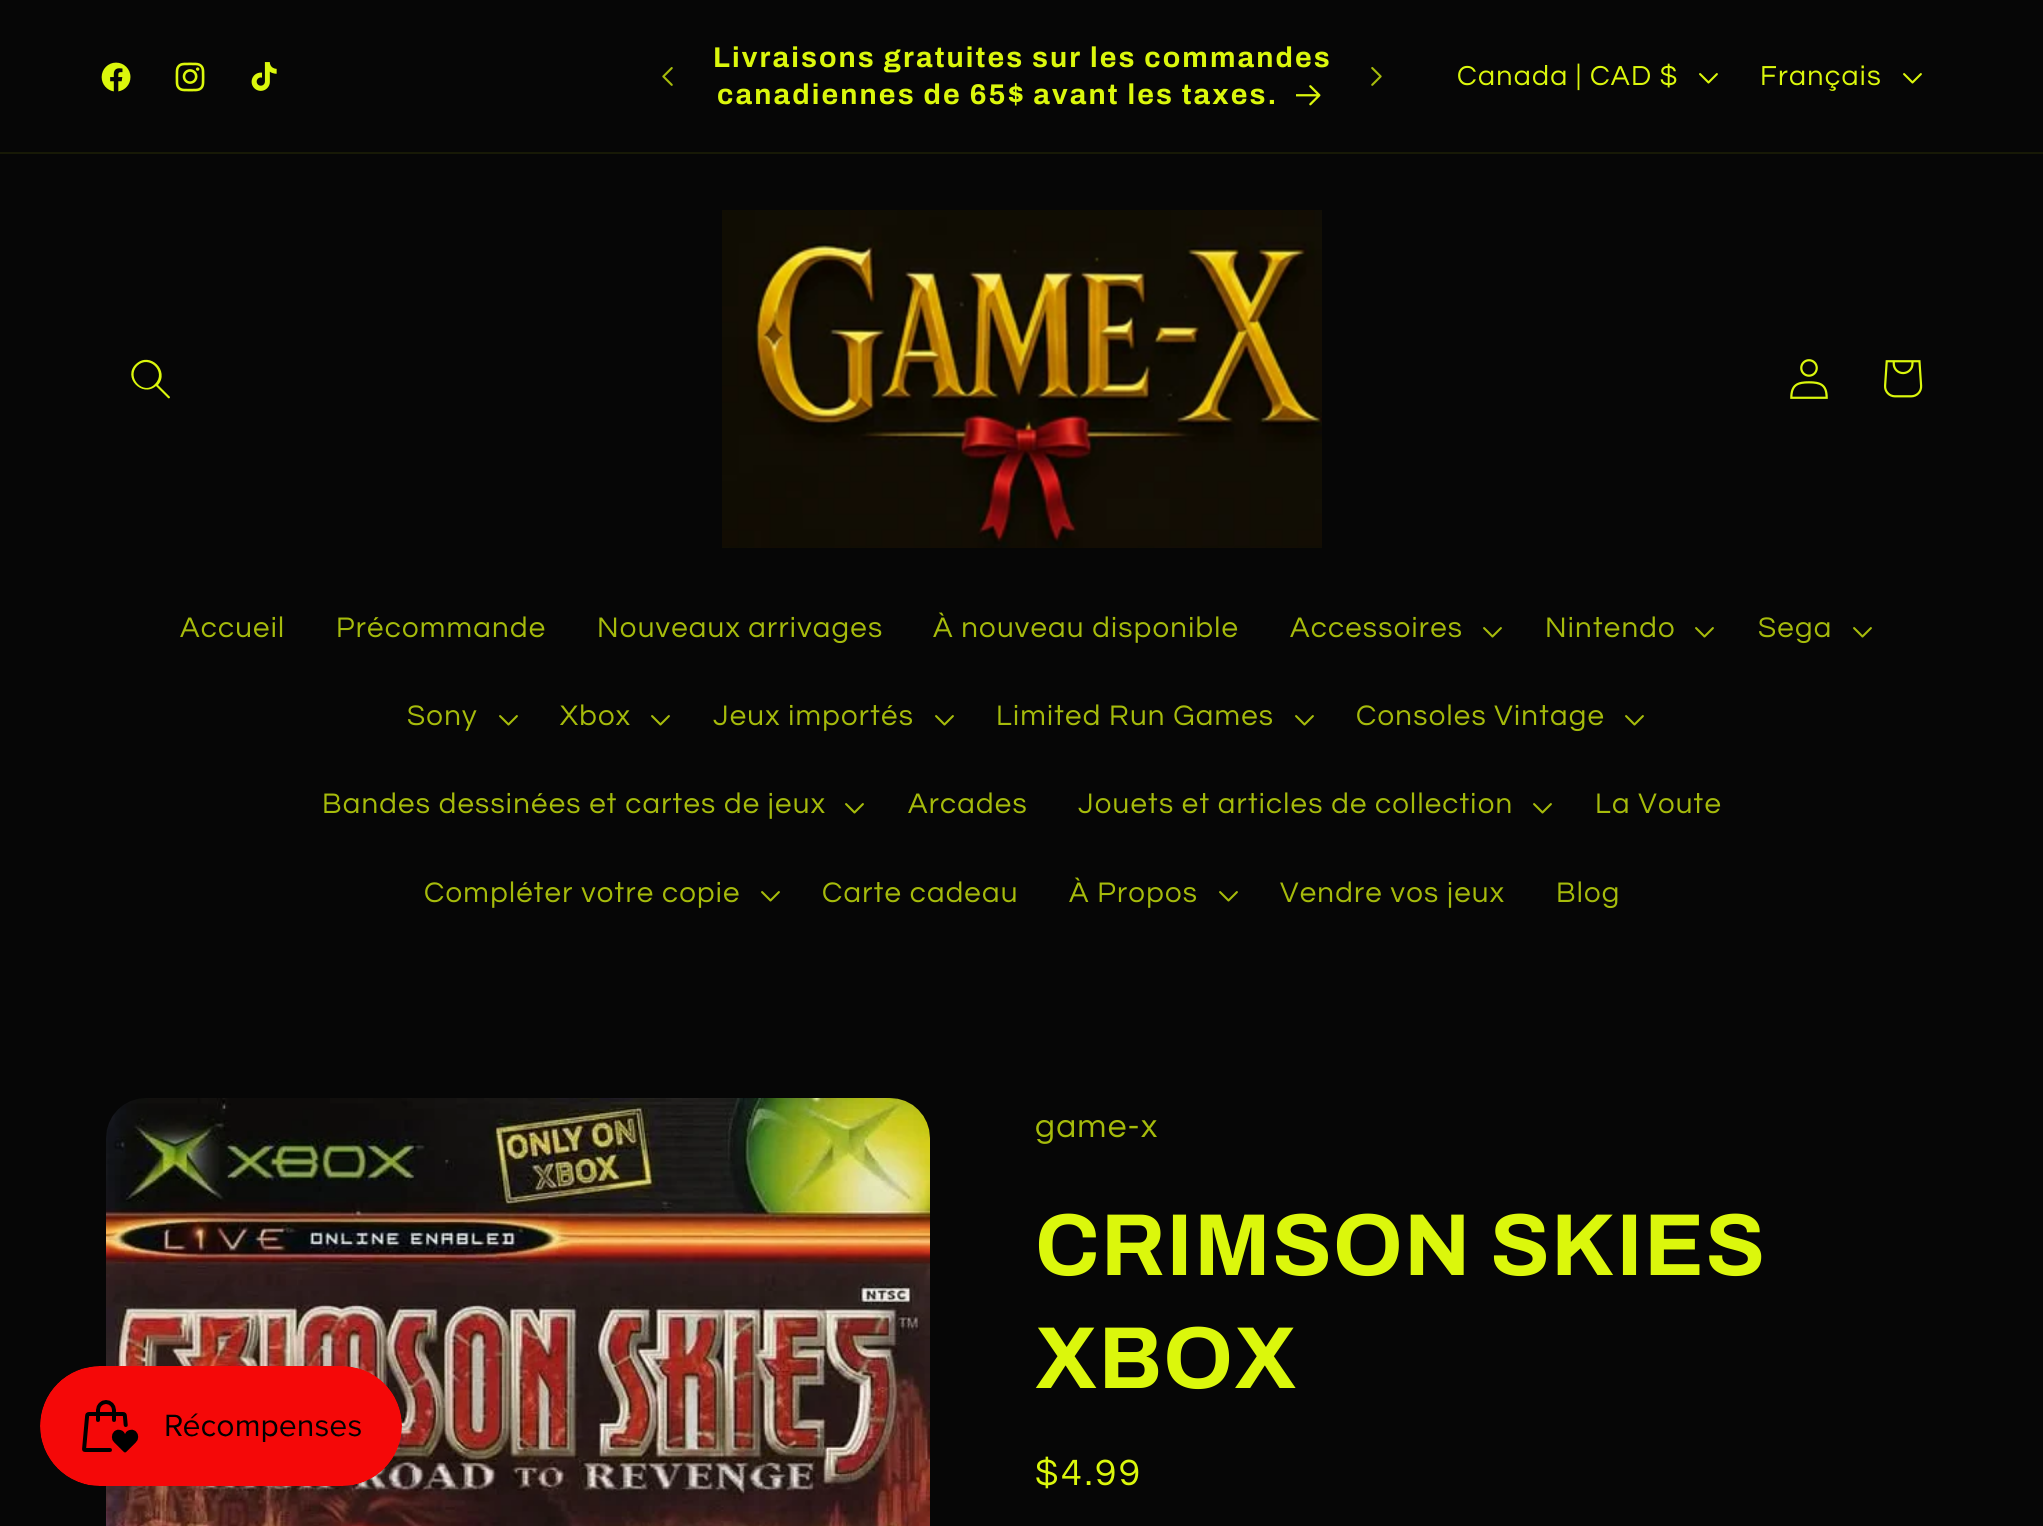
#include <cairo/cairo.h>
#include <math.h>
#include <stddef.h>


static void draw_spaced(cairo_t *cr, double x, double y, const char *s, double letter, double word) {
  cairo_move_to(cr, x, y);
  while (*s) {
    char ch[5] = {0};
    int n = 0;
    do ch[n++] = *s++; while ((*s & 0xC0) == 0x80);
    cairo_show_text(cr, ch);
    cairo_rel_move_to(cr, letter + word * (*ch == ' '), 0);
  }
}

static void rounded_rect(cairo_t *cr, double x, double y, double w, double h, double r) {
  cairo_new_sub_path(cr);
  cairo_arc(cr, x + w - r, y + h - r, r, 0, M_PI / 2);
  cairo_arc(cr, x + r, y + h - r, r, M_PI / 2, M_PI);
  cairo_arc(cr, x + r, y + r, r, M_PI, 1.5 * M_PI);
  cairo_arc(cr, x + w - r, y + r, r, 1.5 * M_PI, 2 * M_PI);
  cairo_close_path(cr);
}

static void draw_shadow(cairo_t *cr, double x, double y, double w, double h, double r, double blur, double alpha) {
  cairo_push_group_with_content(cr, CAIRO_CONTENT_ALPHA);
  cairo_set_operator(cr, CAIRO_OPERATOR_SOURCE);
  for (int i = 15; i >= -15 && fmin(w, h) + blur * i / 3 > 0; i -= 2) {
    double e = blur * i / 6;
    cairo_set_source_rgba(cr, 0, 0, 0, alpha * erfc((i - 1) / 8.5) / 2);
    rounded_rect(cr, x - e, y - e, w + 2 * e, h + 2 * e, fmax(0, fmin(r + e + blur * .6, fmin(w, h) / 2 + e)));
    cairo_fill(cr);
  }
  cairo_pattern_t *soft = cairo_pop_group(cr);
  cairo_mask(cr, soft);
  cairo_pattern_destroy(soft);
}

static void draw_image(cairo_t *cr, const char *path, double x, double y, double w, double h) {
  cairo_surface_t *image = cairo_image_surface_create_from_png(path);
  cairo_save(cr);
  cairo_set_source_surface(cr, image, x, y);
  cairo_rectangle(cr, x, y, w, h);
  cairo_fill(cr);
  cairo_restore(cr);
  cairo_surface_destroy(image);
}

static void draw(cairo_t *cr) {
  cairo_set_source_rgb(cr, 6 / 255.0, 6 / 255.0, 6 / 255.0);
  cairo_paint(cr);
  cairo_set_source_rgb(cr, 23 / 255.0, 25 / 255.0, 6 / 255.0);
  cairo_rectangle(cr, 0, 152, 2043, 2);
  cairo_fill(cr);
  draw_image(cr, "images/1.png", 101, 62, 30, 30);
  draw_image(cr, "images/2.png", 175, 62, 30, 30);
  draw_image(cr, "images/3.png", 251, 62, 26, 29);
  draw_image(cr, "images/4.png", 662, 67, 11, 19);
  draw_image(cr, "images/5.png", 1296, 85, 25, 21);
  draw_image(cr, "images/6.png", 1371, 67, 11, 19);
  draw_image(cr, "images/7.png", 1699, 73, 19, 11);
  draw_image(cr, "images/7.png", 1903, 73, 19, 11);
  cairo_set_source_rgb(cr, 219 / 255.0, 247 / 255.0, 12 / 255.0);
  cairo_set_fill_rule(cr, CAIRO_FILL_RULE_EVEN_ODD);
  cairo_new_path(cr);
  cairo_move_to(cr, 155, 384);
  cairo_curve_to(cr, 144, 396, 126, 378, 137, 366);
  cairo_curve_to(cr, 149, 354, 167, 372, 155, 384);
  cairo_move_to(cr, 156, 386);
  cairo_curve_to(cr, 142, 398, 122, 377, 136, 364);
  cairo_curve_to(cr, 150, 351, 170, 371, 158, 385);
  cairo_line_to(cr, 170, 397);
  cairo_curve_to(cr, 170, 398, 169, 399, 168, 398);
  cairo_close_path(cr);
  cairo_fill(cr);
  draw_image(cr, "images/8.png", 722, 210, 600, 338);
  draw_image(cr, "images/9.png", 1790, 359, 38, 40);
  draw_image(cr, "images/10.png", 1884, 360, 39, 38);
  draw_image(cr, "images/11.png", 1483, 627, 19, 11);
  draw_image(cr, "images/11.png", 1695, 627, 19, 11);
  draw_image(cr, "images/11.png", 1853, 627, 19, 11);
  draw_image(cr, "images/11.png", 499, 715, 19, 11);
  draw_image(cr, "images/11.png", 651, 715, 19, 11);
  draw_image(cr, "images/11.png", 935, 715, 19, 11);
  draw_image(cr, "images/11.png", 1295, 715, 19, 11);
  draw_image(cr, "images/11.png", 1625, 715, 19, 11);
  draw_image(cr, "images/11.png", 845, 803, 19, 11);
  draw_image(cr, "images/11.png", 1533, 803, 19, 11);
  draw_image(cr, "images/11.png", 761, 891, 19, 11);
  draw_image(cr, "images/11.png", 1219, 891, 19, 11);
  draw_image(cr, "images/13.png", 106, 1098, 824, 428);
  cairo_set_source_rgb(cr, 0, 0, 0);
  draw_shadow(cr, 40, 1366, 362, 120, 60, 25, 0.05);
  draw_image(cr, "images/12.png", 40, 1366, 362, 120);
  cairo_select_font_face(cr, "Archivo", CAIRO_FONT_SLANT_NORMAL, CAIRO_FONT_WEIGHT_BOLD);
  cairo_set_font_size(cr, 28.6);
  cairo_set_source_rgb(cr, 219 / 255.0, 247 / 255.0, 12 / 255.0);
  draw_spaced(cr, 713, 67, "Livraisons gratuites sur les commandes", 2.1, 0);
  draw_spaced(cr, 717, 104, "canadiennes de 65$ avant les taxes.", 2.1, 0);
  cairo_select_font_face(cr, "Questrial", CAIRO_FONT_SLANT_NORMAL, CAIRO_FONT_WEIGHT_NORMAL);
  draw_spaced(cr, 1457, 85, "Canada | CAD $", 1.25, 0);
  draw_spaced(cr, 1760, 85, "Français", 1.25, 0);
  cairo_set_font_size(cr, 29.4);
  cairo_set_source_rgb(cr, 166 / 255.0, 187 / 255.0, 11 / 255.0);
  draw_spaced(cr, 180, 637, "Accueil", 1.25, 0);
  draw_spaced(cr, 336, 637, "Précommande", 1.25, 0);
  draw_spaced(cr, 597, 637, "Nouveaux arrivages", 1.25, 0);
  draw_spaced(cr, 933, 637, "À nouveau disponible", 1.25, 0);
  draw_spaced(cr, 1290, 637, "Accessoires", 1.25, 0);
  draw_spaced(cr, 1545, 637, "Nintendo", 1.25, 0);
  draw_spaced(cr, 1758, 637, "Sega", 1.25, 0);
  draw_spaced(cr, 407, 725, "Sony", 1.25, 0);
  draw_spaced(cr, 560, 725, "Xbox", 1.25, 0);
  draw_spaced(cr, 713, 725, "Jeux importés", 1.25, 0);
  draw_spaced(cr, 996, 725, "Limited Run Games", 1.25, 0);
  draw_spaced(cr, 1356, 725, "Consoles Vintage", 1.25, 0);
  draw_spaced(cr, 322, 813, "Bandes dessinées et cartes de jeux", 1.25, 0);
  draw_spaced(cr, 908, 813, "Arcades", 1.25, 0);
  draw_spaced(cr, 1078, 813, "Jouets et articles de collection", 1.25, 0);
  draw_spaced(cr, 1595, 813, "La Voute", 1.25, 0);
  draw_spaced(cr, 424, 902, "Compléter votre copie", 1.25, 0);
  draw_spaced(cr, 822, 902, "Carte cadeau", 1.25, 0);
  draw_spaced(cr, 1069, 902, "À Propos", 1.25, 0);
  draw_spaced(cr, 1280, 902, "Vendre vos jeux", 1.25, 0);
  draw_spaced(cr, 1556, 902, "Blog", 1.25, 0);
  cairo_set_font_size(cr, 33.5);
  draw_spaced(cr, 1035, 1137, "game-x", 1.25, 0);
  cairo_select_font_face(cr, "Archivo", CAIRO_FONT_SLANT_NORMAL, CAIRO_FONT_WEIGHT_BOLD);
  cairo_set_font_size(cr, 88);
  cairo_set_source_rgb(cr, 219 / 255.0, 247 / 255.0, 12 / 255.0);
  draw_spaced(cr, 1035, 1275, "CRIMSON SKIES", 1.25, 0);
  draw_spaced(cr, 1035, 1388, "XBOX", 1.25, 0);
  cairo_select_font_face(cr, "Questrial", CAIRO_FONT_SLANT_NORMAL, CAIRO_FONT_WEIGHT_NORMAL);
  cairo_set_font_size(cr, 38);
  draw_spaced(cr, 1035, 1485, "$4.99", 2.75, 0);
}

int main(void) {
  cairo_surface_t *surface = cairo_image_surface_create(CAIRO_FORMAT_RGB24, 2043, 1526);
  cairo_t *cr = cairo_create(surface);
  cairo_font_options_t *options = cairo_font_options_create();
  cairo_font_options_set_hint_metrics(options, CAIRO_HINT_METRICS_OFF);
  cairo_font_options_set_hint_style(options, CAIRO_HINT_STYLE_NONE);
  cairo_set_font_options(cr, options);
  cairo_set_miter_limit(cr, 4);
  draw(cr);
  cairo_surface_write_to_png(surface, "out.png");
  cairo_font_options_destroy(options);
  cairo_destroy(cr);
  cairo_surface_destroy(surface);
  return 0;
}
